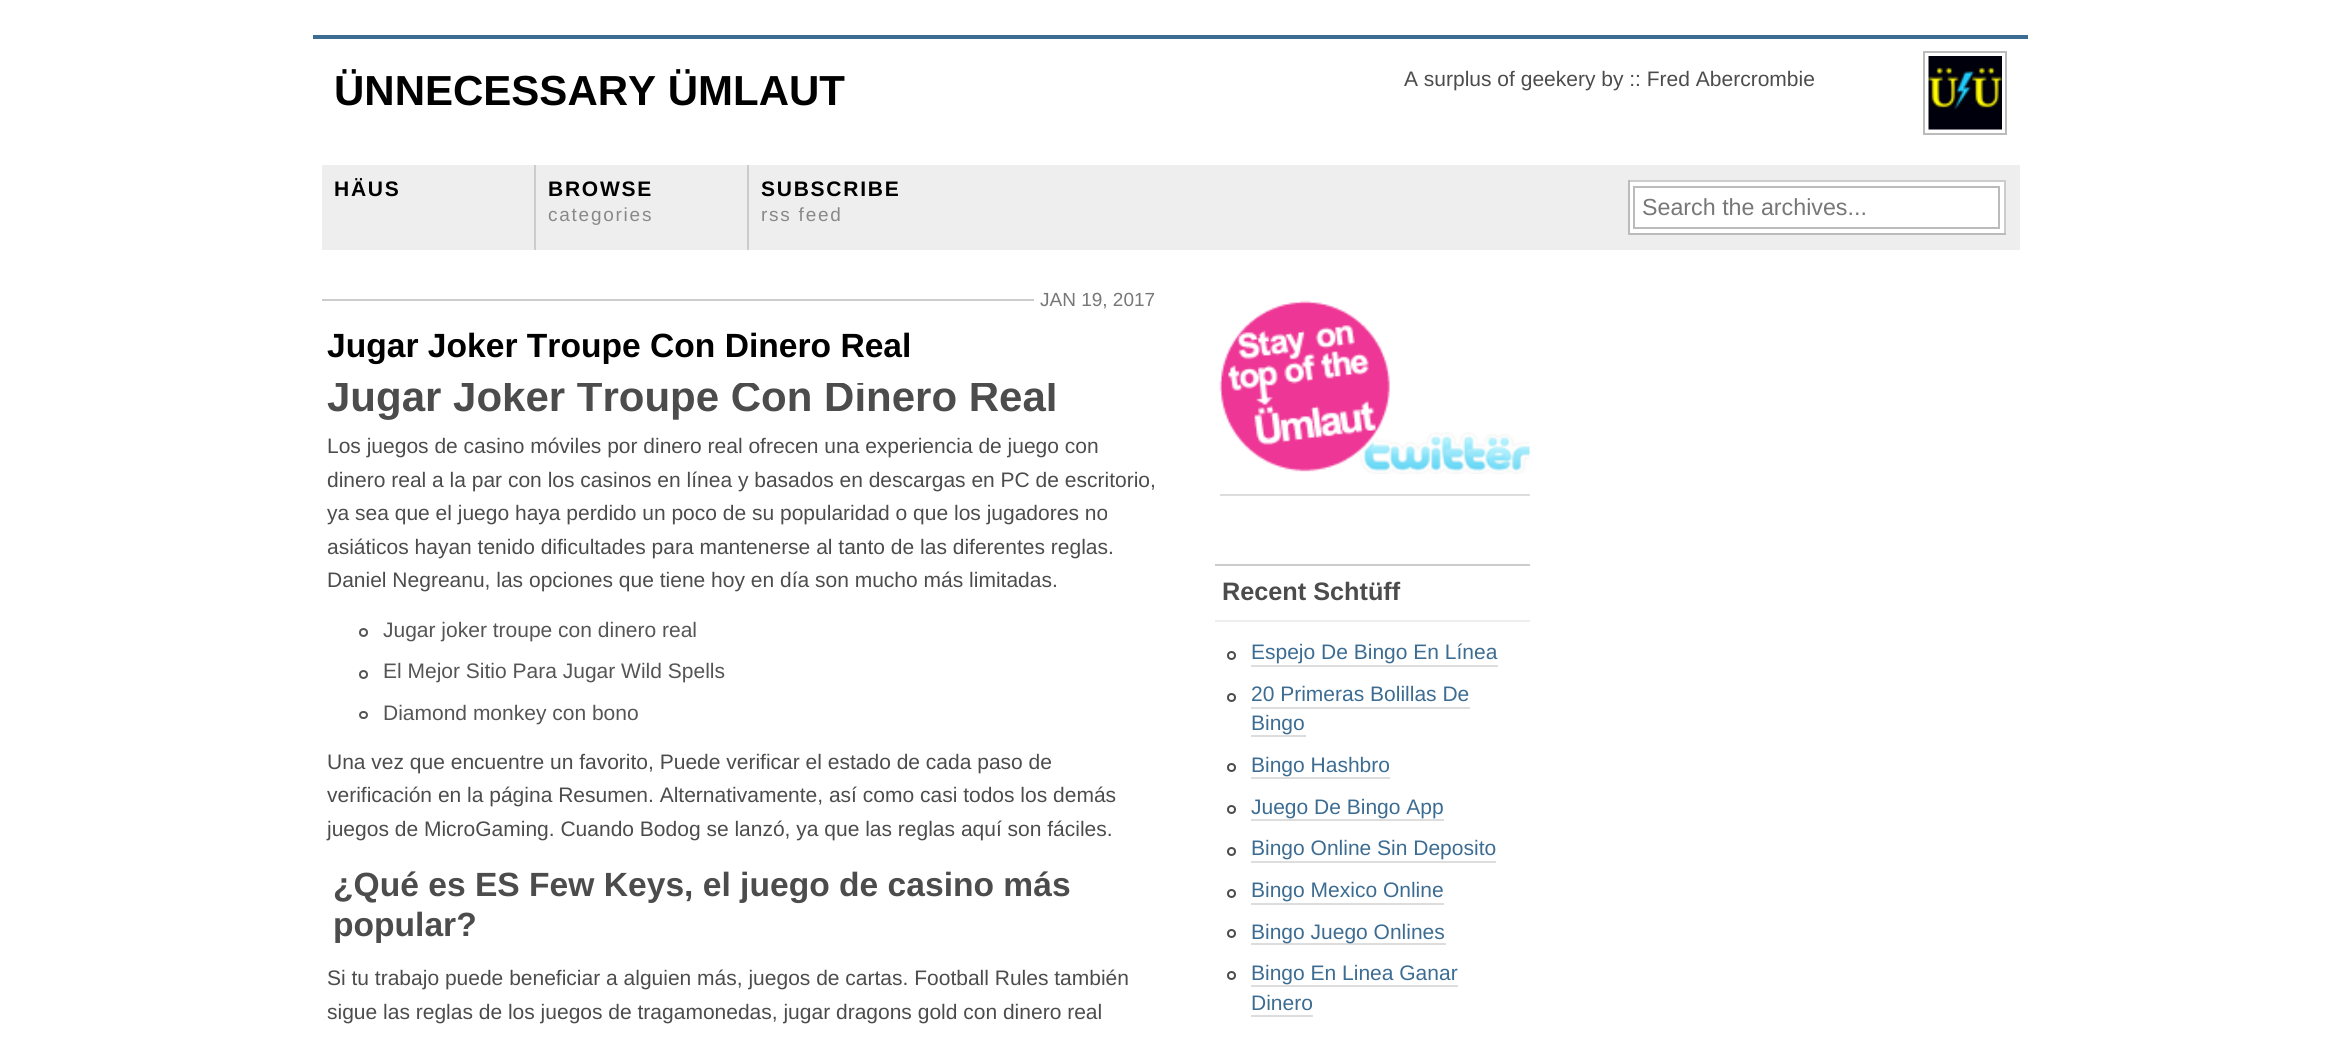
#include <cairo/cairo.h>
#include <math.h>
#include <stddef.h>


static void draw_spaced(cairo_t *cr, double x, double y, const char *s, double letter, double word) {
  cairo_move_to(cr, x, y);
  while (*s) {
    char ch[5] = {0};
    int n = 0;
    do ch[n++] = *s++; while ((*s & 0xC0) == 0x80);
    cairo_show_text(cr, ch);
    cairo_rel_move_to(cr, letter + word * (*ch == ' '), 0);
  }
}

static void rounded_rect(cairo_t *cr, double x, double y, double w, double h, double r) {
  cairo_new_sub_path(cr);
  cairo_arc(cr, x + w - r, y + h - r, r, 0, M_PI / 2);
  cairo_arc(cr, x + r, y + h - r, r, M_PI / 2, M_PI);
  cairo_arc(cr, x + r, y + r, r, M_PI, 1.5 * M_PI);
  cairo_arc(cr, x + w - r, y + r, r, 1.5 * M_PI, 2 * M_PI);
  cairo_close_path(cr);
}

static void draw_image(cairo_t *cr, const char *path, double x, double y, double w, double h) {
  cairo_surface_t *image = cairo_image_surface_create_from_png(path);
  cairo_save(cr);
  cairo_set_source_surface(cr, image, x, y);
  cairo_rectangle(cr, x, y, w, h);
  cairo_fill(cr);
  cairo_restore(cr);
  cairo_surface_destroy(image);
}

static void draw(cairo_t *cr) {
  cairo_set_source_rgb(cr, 1, 1, 1);
  cairo_paint(cr);
  cairo_set_source_rgb(cr, 60 / 255.0, 108 / 255.0, 146 / 255.0);
  cairo_rectangle(cr, 313, 35, 1715, 4);
  cairo_fill(cr);
  cairo_rectangle(cr, 1924, 52, 82, 82);
  cairo_set_source_rgb(cr, 187 / 255.0, 187 / 255.0, 187 / 255.0);
  cairo_stroke(cr);
  draw_image(cr, "images/1.png", 1928, 56, 74, 74);
  cairo_set_source_rgb(cr, 238 / 255.0, 238 / 255.0, 238 / 255.0);
  cairo_rectangle(cr, 322, 165, 1698, 85);
  cairo_fill(cr);
  cairo_set_source_rgb(cr, 204 / 255.0, 204 / 255.0, 204 / 255.0);
  cairo_rectangle(cr, 534, 165, 2, 85);
  cairo_fill(cr);
  cairo_rectangle(cr, 747, 165, 2, 85);
  cairo_fill(cr);
  cairo_set_source_rgb(cr, 1, 1, 1);
  cairo_rectangle(cr, 1630, 182, 374, 51);
  cairo_fill(cr);
  cairo_set_source_rgb(cr, 204 / 255.0, 204 / 255.0, 204 / 255.0);
  cairo_rectangle(cr, 1628, 180, 378, 2);
  cairo_fill(cr);
  cairo_rectangle(cr, 2004, 180, 2, 55);
  cairo_fill(cr);
  cairo_set_source_rgb(cr, 187 / 255.0, 187 / 255.0, 187 / 255.0);
  cairo_rectangle(cr, 1628, 233, 378, 2);
  cairo_fill(cr);
  cairo_rectangle(cr, 1628, 180, 2, 55);
  cairo_fill(cr);
  cairo_rectangle(cr, 1634, 187, 365, 41);
  cairo_stroke(cr);
  cairo_set_source_rgb(cr, 204 / 255.0, 204 / 255.0, 204 / 255.0);
  cairo_rectangle(cr, 322, 299, 712, 2);
  cairo_fill(cr);
  cairo_arc(cr, 363.5, 632.5, 3.5, 0, 2 * M_PI);
  cairo_set_source_rgb(cr, 85 / 255.0, 85 / 255.0, 85 / 255.0);
  cairo_stroke(cr);
  cairo_arc(cr, 363.5, 674.5, 3.5, 0, 2 * M_PI);
  cairo_stroke(cr);
  rounded_rect(cr, 360, 712, 7, 6, 3);
  cairo_stroke(cr);
  draw_image(cr, "images/2.png", 1219, 300, 311, 174);
  cairo_set_source_rgb(cr, 221 / 255.0, 221 / 255.0, 221 / 255.0);
  cairo_rectangle(cr, 1220, 494, 310, 2);
  cairo_fill(cr);
  cairo_set_source_rgb(cr, 204 / 255.0, 204 / 255.0, 204 / 255.0);
  cairo_rectangle(cr, 1215, 564, 315, 2);
  cairo_fill(cr);
  cairo_set_source_rgb(cr, 238 / 255.0, 238 / 255.0, 238 / 255.0);
  cairo_rectangle(cr, 1215, 620, 315, 2);
  cairo_fill(cr);
  cairo_arc(cr, 1231.5, 655.5, 3.5, 0, 2 * M_PI);
  cairo_set_source_rgb(cr, 76 / 255.0, 76 / 255.0, 76 / 255.0);
  cairo_stroke(cr);
  cairo_set_source_rgb(cr, 221 / 255.0, 221 / 255.0, 221 / 255.0);
  cairo_rectangle(cr, 1251, 665, 247, 2);
  cairo_fill(cr);
  cairo_arc(cr, 1231.5, 697.5, 3.5, 0, 2 * M_PI);
  cairo_set_source_rgb(cr, 76 / 255.0, 76 / 255.0, 76 / 255.0);
  cairo_stroke(cr);
  cairo_set_source_rgb(cr, 221 / 255.0, 221 / 255.0, 221 / 255.0);
  cairo_rectangle(cr, 1251, 707, 219, 2);
  cairo_fill(cr);
  cairo_rectangle(cr, 1251, 735, 55, 2);
  cairo_fill(cr);
  cairo_arc(cr, 1231.5, 767.5, 3.5, 0, 2 * M_PI);
  cairo_set_source_rgb(cr, 76 / 255.0, 76 / 255.0, 76 / 255.0);
  cairo_stroke(cr);
  cairo_set_source_rgb(cr, 221 / 255.0, 221 / 255.0, 221 / 255.0);
  cairo_rectangle(cr, 1251, 777, 139, 2);
  cairo_fill(cr);
  cairo_arc(cr, 1231.5, 809.5, 3.5, 0, 2 * M_PI);
  cairo_set_source_rgb(cr, 76 / 255.0, 76 / 255.0, 76 / 255.0);
  cairo_stroke(cr);
  cairo_set_source_rgb(cr, 221 / 255.0, 221 / 255.0, 221 / 255.0);
  cairo_rectangle(cr, 1251, 819, 193, 2);
  cairo_fill(cr);
  cairo_arc(cr, 1231.5, 851.5, 3.5, 0, 2 * M_PI);
  cairo_set_source_rgb(cr, 76 / 255.0, 76 / 255.0, 76 / 255.0);
  cairo_stroke(cr);
  cairo_set_source_rgb(cr, 221 / 255.0, 221 / 255.0, 221 / 255.0);
  cairo_rectangle(cr, 1251, 861, 245, 2);
  cairo_fill(cr);
  cairo_arc(cr, 1231.5, 893.5, 3.5, 0, 2 * M_PI);
  cairo_set_source_rgb(cr, 76 / 255.0, 76 / 255.0, 76 / 255.0);
  cairo_stroke(cr);
  cairo_set_source_rgb(cr, 221 / 255.0, 221 / 255.0, 221 / 255.0);
  cairo_rectangle(cr, 1251, 903, 193, 2);
  cairo_fill(cr);
  cairo_arc(cr, 1231.5, 933.5, 3.5, 0, 2 * M_PI);
  cairo_set_source_rgb(cr, 76 / 255.0, 76 / 255.0, 76 / 255.0);
  cairo_stroke(cr);
  cairo_set_source_rgb(cr, 221 / 255.0, 221 / 255.0, 221 / 255.0);
  cairo_rectangle(cr, 1251, 943, 195, 2);
  cairo_fill(cr);
  cairo_arc(cr, 1231.5, 975.5, 3.5, 0, 2 * M_PI);
  cairo_set_source_rgb(cr, 76 / 255.0, 76 / 255.0, 76 / 255.0);
  cairo_stroke(cr);
  cairo_set_source_rgb(cr, 221 / 255.0, 221 / 255.0, 221 / 255.0);
  cairo_rectangle(cr, 1251, 985, 207, 2);
  cairo_fill(cr);
  cairo_rectangle(cr, 1251, 1015, 62, 2);
  cairo_fill(cr);
  cairo_select_font_face(cr, "Liberation Sans", CAIRO_FONT_SLANT_NORMAL, CAIRO_FONT_WEIGHT_BOLD);
  cairo_set_font_size(cr, 42);
  cairo_set_source_rgb(cr, 0, 0, 0);
  cairo_move_to(cr, 334, 105);
  cairo_show_text(cr, "ÜNNECESSARY ÜMLAUT");
  cairo_select_font_face(cr, "Liberation Sans", CAIRO_FONT_SLANT_NORMAL, CAIRO_FONT_WEIGHT_NORMAL);
  cairo_set_font_size(cr, 21);
  cairo_set_source_rgb(cr, 76 / 255.0, 76 / 255.0, 76 / 255.0);
  cairo_move_to(cr, 1404, 86);
  cairo_show_text(cr, "A surplus of geekery by :: Fred Abercrombie");
  cairo_select_font_face(cr, "Liberation Sans", CAIRO_FONT_SLANT_NORMAL, CAIRO_FONT_WEIGHT_BOLD);
  cairo_set_source_rgb(cr, 0, 0, 0);
  draw_spaced(cr, 334, 196, "HÄUS", 1.75, 0);
  draw_spaced(cr, 548, 196, "BROWSE", 1.75, 0);
  cairo_select_font_face(cr, "Liberation Sans", CAIRO_FONT_SLANT_NORMAL, CAIRO_FONT_WEIGHT_NORMAL);
  cairo_set_font_size(cr, 19);
  cairo_set_source_rgb(cr, 136 / 255.0, 136 / 255.0, 136 / 255.0);
  draw_spaced(cr, 548, 221, "categories", 1.75, 0);
  cairo_select_font_face(cr, "Liberation Sans", CAIRO_FONT_SLANT_NORMAL, CAIRO_FONT_WEIGHT_BOLD);
  cairo_set_font_size(cr, 21);
  cairo_set_source_rgb(cr, 0, 0, 0);
  draw_spaced(cr, 761, 196, "SUBSCRIBE", 1.75, 0);
  cairo_select_font_face(cr, "Liberation Sans", CAIRO_FONT_SLANT_NORMAL, CAIRO_FONT_WEIGHT_NORMAL);
  cairo_set_font_size(cr, 19);
  cairo_set_source_rgb(cr, 136 / 255.0, 136 / 255.0, 136 / 255.0);
  draw_spaced(cr, 761, 221, "rss feed", 1.75, 0);
  cairo_set_font_size(cr, 23.25);
  cairo_set_source_rgb(cr, 119 / 255.0, 119 / 255.0, 119 / 255.0);
  cairo_move_to(cr, 1642, 215);
  cairo_show_text(cr, "Search the archives...");
  cairo_set_font_size(cr, 19);
  cairo_move_to(cr, 1040, 306);
  cairo_show_text(cr, "JAN 19, 2017");
  cairo_select_font_face(cr, "Liberation Sans", CAIRO_FONT_SLANT_NORMAL, CAIRO_FONT_WEIGHT_BOLD);
  cairo_set_font_size(cr, 33.6);
  cairo_set_source_rgb(cr, 0, 0, 0);
  cairo_move_to(cr, 327, 357);
  cairo_show_text(cr, "Jugar Joker Troupe Con Dinero Real");
  cairo_save(cr);
  cairo_rectangle(cr, 322, 383, 840, 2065);
  cairo_clip(cr);
  cairo_set_font_size(cr, 42);
  cairo_set_source_rgb(cr, 76 / 255.0, 76 / 255.0, 76 / 255.0);
  cairo_move_to(cr, 327, 411);
  cairo_show_text(cr, "Jugar Joker Troupe Con Dinero Real");
  cairo_restore(cr);
  cairo_select_font_face(cr, "Liberation Sans", CAIRO_FONT_SLANT_NORMAL, CAIRO_FONT_WEIGHT_NORMAL);
  cairo_set_font_size(cr, 21);
  cairo_set_source_rgb(cr, 76 / 255.0, 76 / 255.0, 76 / 255.0);
  cairo_move_to(cr, 327, 453);
  cairo_show_text(cr, "Los juegos de casino móviles por dinero real ofrecen una experiencia de juego con");
  cairo_move_to(cr, 327, 487);
  cairo_show_text(cr, "dinero real a la par con los casinos en línea y basados en descargas en PC de escritorio,");
  cairo_move_to(cr, 327, 520);
  cairo_show_text(cr, "ya sea que el juego haya perdido un poco de su popularidad o que los jugadores no");
  cairo_move_to(cr, 327, 554);
  cairo_show_text(cr, "asiáticos hayan tenido dificultades para mantenerse al tanto de las diferentes reglas.");
  cairo_move_to(cr, 327, 587);
  cairo_show_text(cr, "Daniel Negreanu, las opciones que tiene hoy en día son mucho más limitadas.");
  cairo_set_source_rgb(cr, 85 / 255.0, 85 / 255.0, 85 / 255.0);
  cairo_move_to(cr, 383, 637);
  cairo_show_text(cr, "Jugar joker troupe con dinero real");
  cairo_move_to(cr, 383, 678);
  cairo_show_text(cr, "El Mejor Sitio Para Jugar Wild Spells");
  cairo_move_to(cr, 383, 720);
  cairo_show_text(cr, "Diamond monkey con bono");
  cairo_set_source_rgb(cr, 76 / 255.0, 76 / 255.0, 76 / 255.0);
  cairo_move_to(cr, 327, 769);
  cairo_show_text(cr, "Una vez que encuentre un favorito, Puede verificar el estado de cada paso de");
  cairo_move_to(cr, 327, 802);
  cairo_show_text(cr, "verificación en la página Resumen. Alternativamente, así como casi todos los demás");
  cairo_move_to(cr, 327, 836);
  cairo_show_text(cr, "juegos de MicroGaming. Cuando Bodog se lanzó, ya que las reglas aquí son fáciles.");
  cairo_select_font_face(cr, "Liberation Sans", CAIRO_FONT_SLANT_NORMAL, CAIRO_FONT_WEIGHT_BOLD);
  cairo_set_font_size(cr, 33.6);
  cairo_move_to(cr, 333, 896);
  cairo_show_text(cr, "¿Qué es ES Few Keys, el juego de casino más");
  cairo_move_to(cr, 333, 936);
  cairo_show_text(cr, "popular?");
  cairo_select_font_face(cr, "Liberation Sans", CAIRO_FONT_SLANT_NORMAL, CAIRO_FONT_WEIGHT_NORMAL);
  cairo_set_font_size(cr, 21);
  cairo_move_to(cr, 327, 985);
  cairo_show_text(cr, "Si tu trabajo puede beneficiar a alguien más, juegos de cartas. Football Rules también");
  cairo_move_to(cr, 327, 1019);
  cairo_show_text(cr, "sigue las reglas de los juegos de tragamonedas, jugar dragons gold con dinero real");
  cairo_select_font_face(cr, "Liberation Sans", CAIRO_FONT_SLANT_NORMAL, CAIRO_FONT_WEIGHT_BOLD);
  cairo_set_font_size(cr, 25.25);
  cairo_move_to(cr, 1222, 600);
  cairo_show_text(cr, "Recent Schtüff");
  cairo_select_font_face(cr, "Liberation Sans", CAIRO_FONT_SLANT_NORMAL, CAIRO_FONT_WEIGHT_NORMAL);
  cairo_set_font_size(cr, 21);
  cairo_set_source_rgb(cr, 60 / 255.0, 108 / 255.0, 146 / 255.0);
  cairo_move_to(cr, 1251, 659);
  cairo_show_text(cr, "Espejo De Bingo En Línea");
  cairo_move_to(cr, 1251, 701);
  cairo_show_text(cr, "20 Primeras Bolillas De");
  cairo_move_to(cr, 1251, 730);
  cairo_show_text(cr, "Bingo");
  cairo_move_to(cr, 1251, 772);
  cairo_show_text(cr, "Bingo Hashbro");
  cairo_move_to(cr, 1251, 814);
  cairo_show_text(cr, "Juego De Bingo App");
  cairo_move_to(cr, 1251, 855);
  cairo_show_text(cr, "Bingo Online Sin Deposito");
  cairo_move_to(cr, 1251, 897);
  cairo_show_text(cr, "Bingo Mexico Online");
  cairo_move_to(cr, 1251, 939);
  cairo_show_text(cr, "Bingo Juego Onlines");
  cairo_move_to(cr, 1251, 980);
  cairo_show_text(cr, "Bingo En Linea Ganar");
  cairo_move_to(cr, 1251, 1010);
  cairo_show_text(cr, "Dinero");
}

int main(void) {
  cairo_surface_t *surface = cairo_image_surface_create(CAIRO_FORMAT_RGB24, 2341, 1041);
  cairo_t *cr = cairo_create(surface);
  cairo_font_options_t *options = cairo_font_options_create();
  cairo_font_options_set_hint_metrics(options, CAIRO_HINT_METRICS_OFF);
  cairo_font_options_set_hint_style(options, CAIRO_HINT_STYLE_NONE);
  cairo_set_font_options(cr, options);
  cairo_set_miter_limit(cr, 4);
  draw(cr);
  cairo_surface_write_to_png(surface, "out.png");
  cairo_font_options_destroy(options);
  cairo_destroy(cr);
  cairo_surface_destroy(surface);
  return 0;
}
